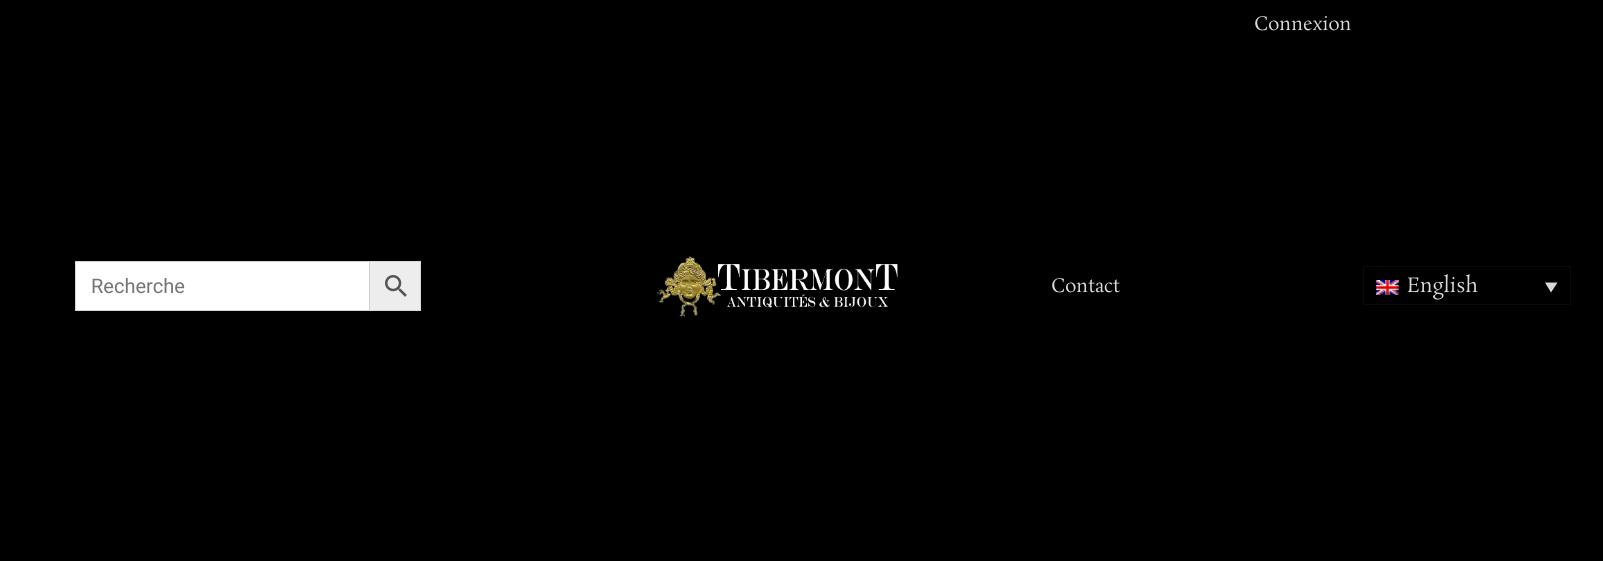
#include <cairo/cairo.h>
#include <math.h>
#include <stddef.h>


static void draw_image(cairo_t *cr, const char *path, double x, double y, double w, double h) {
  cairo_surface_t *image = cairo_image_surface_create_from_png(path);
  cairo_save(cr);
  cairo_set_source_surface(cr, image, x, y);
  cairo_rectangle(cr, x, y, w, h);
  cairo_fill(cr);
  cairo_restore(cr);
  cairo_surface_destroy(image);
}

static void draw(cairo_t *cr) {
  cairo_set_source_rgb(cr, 0, 0, 0);
  cairo_paint(cr);
  cairo_set_source_rgb(cr, 237 / 255.0, 237 / 255.0, 237 / 255.0);
  cairo_rectangle(cr, 369.5, 261.5, 51, 49);
  cairo_fill_preserve(cr);
  cairo_set_source_rgb(cr, 216 / 255.0, 216 / 255.0, 216 / 255.0);
  cairo_set_line_width(cr, 1);
  cairo_stroke(cr);
  cairo_set_source_rgb(cr, 1, 1, 1);
  cairo_rectangle(cr, 75.5, 261.5, 294, 49);
  cairo_fill_preserve(cr);
  cairo_set_source_rgb(cr, 206 / 255.0, 212 / 255.0, 218 / 255.0);
  cairo_stroke(cr);
  draw_image(cr, "images/1.png", 385, 275, 22, 22);
  draw_image(cr, "images/2.png", 657, 256, 241, 61);
  cairo_rectangle(cr, 1363.5, 266.5, 207, 38);
  cairo_set_source_rgb(cr, 10 / 255.0, 10 / 255.0, 10 / 255.0);
  cairo_stroke(cr);
  draw_image(cr, "images/3.png", 1376, 280, 23, 15);
  cairo_set_source_rgb(cr, 218 / 255.0, 218 / 255.0, 218 / 255.0);
  cairo_new_path(cr);
  cairo_move_to(cr, 1545, 282.5);
  cairo_line_to(cr, 1557.5, 282.5);
  cairo_line_to(cr, 1551, 292.5);
  cairo_close_path(cr);
  cairo_fill(cr);
  cairo_select_font_face(cr, "Rosarivo", CAIRO_FONT_SLANT_NORMAL, CAIRO_FONT_WEIGHT_NORMAL);
  cairo_set_font_size(cr, 18.75);
  cairo_move_to(cr, 1254, 30);
  cairo_show_text(cr, "Connexion");
  cairo_select_font_face(cr, "Roboto", CAIRO_FONT_SLANT_NORMAL, CAIRO_FONT_WEIGHT_NORMAL);
  cairo_set_font_size(cr, 20);
  cairo_set_source_rgb(cr, 117 / 255.0, 117 / 255.0, 117 / 255.0);
  cairo_move_to(cr, 91, 293);
  cairo_show_text(cr, "Recherche");
  cairo_select_font_face(cr, "Rosarivo", CAIRO_FONT_SLANT_NORMAL, CAIRO_FONT_WEIGHT_NORMAL);
  cairo_set_font_size(cr, 18.75);
  cairo_set_source_rgb(cr, 218 / 255.0, 218 / 255.0, 218 / 255.0);
  cairo_move_to(cr, 1051, 292);
  cairo_show_text(cr, "Contact");
  cairo_set_font_size(cr, 20);
  cairo_move_to(cr, 1407, 292);
  cairo_show_text(cr, "English");
}

int main(void) {
  cairo_surface_t *surface = cairo_image_surface_create(CAIRO_FORMAT_RGB24, 1603, 561);
  cairo_t *cr = cairo_create(surface);
  cairo_font_options_t *options = cairo_font_options_create();
  cairo_font_options_set_hint_metrics(options, CAIRO_HINT_METRICS_OFF);
  cairo_font_options_set_hint_style(options, CAIRO_HINT_STYLE_NONE);
  cairo_set_font_options(cr, options);
  cairo_set_miter_limit(cr, 4);
  draw(cr);
  cairo_surface_write_to_png(surface, "out.png");
  cairo_font_options_destroy(options);
  cairo_destroy(cr);
  cairo_surface_destroy(surface);
  return 0;
}
